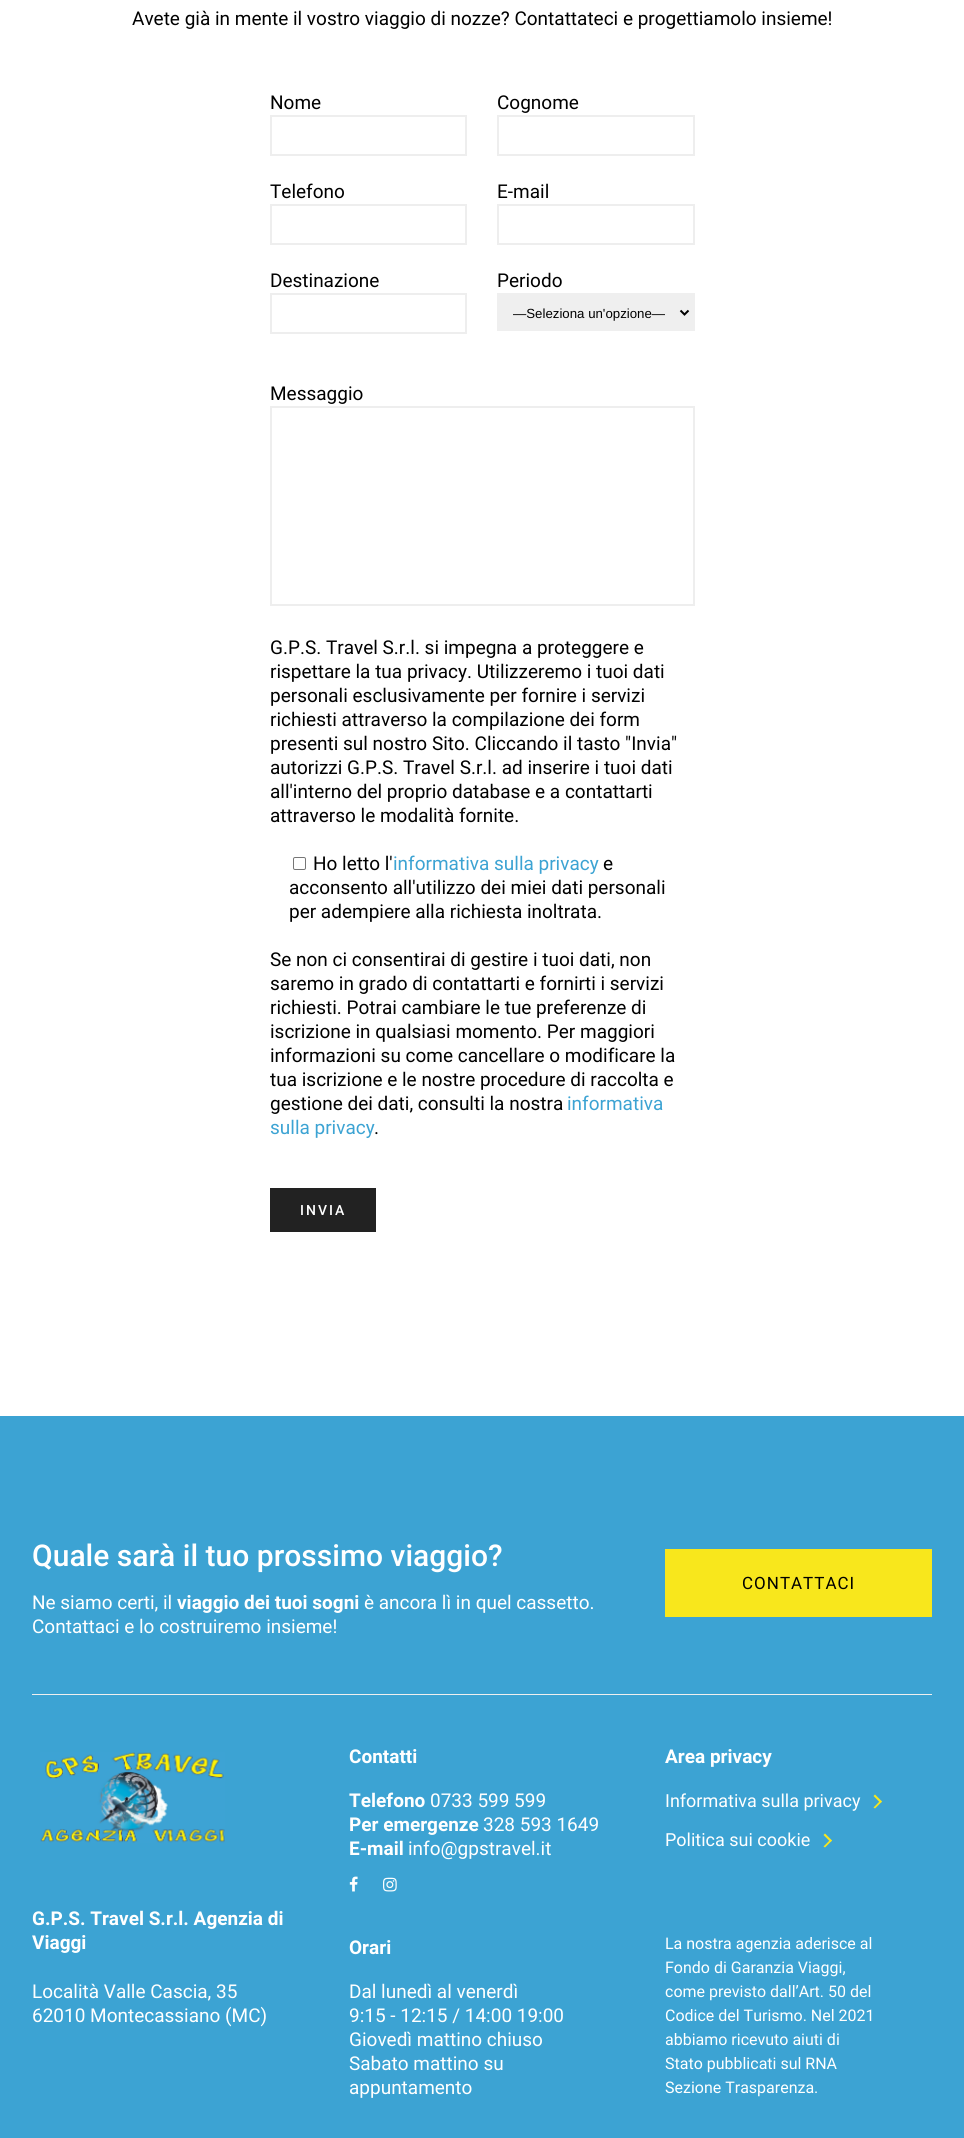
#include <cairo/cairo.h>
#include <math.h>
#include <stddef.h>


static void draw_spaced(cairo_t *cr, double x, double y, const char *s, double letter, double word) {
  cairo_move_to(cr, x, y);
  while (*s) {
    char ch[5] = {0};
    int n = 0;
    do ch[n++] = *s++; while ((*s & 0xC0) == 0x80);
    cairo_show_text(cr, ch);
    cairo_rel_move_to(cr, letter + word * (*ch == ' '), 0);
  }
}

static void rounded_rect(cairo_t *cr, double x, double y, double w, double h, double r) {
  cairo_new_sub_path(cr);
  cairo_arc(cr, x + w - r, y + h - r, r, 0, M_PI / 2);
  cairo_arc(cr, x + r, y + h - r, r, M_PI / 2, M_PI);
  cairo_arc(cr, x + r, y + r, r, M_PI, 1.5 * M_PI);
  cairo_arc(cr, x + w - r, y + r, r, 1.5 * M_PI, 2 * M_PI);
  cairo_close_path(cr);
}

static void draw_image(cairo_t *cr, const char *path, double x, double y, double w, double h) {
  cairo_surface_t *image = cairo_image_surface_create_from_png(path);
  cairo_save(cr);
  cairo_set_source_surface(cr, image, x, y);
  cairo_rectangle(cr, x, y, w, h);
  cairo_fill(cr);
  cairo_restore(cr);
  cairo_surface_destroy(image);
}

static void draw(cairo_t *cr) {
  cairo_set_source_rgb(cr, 1, 1, 1);
  cairo_paint(cr);
  cairo_rectangle(cr, 271, 116, 195, 39);
  cairo_set_source_rgb(cr, 238 / 255.0, 238 / 255.0, 238 / 255.0);
  cairo_stroke(cr);
  cairo_rectangle(cr, 271, 205, 195, 39);
  cairo_stroke(cr);
  cairo_rectangle(cr, 271, 294, 195, 39);
  cairo_stroke(cr);
  cairo_rectangle(cr, 498, 116, 196, 39);
  cairo_stroke(cr);
  cairo_rectangle(cr, 498, 205, 196, 39);
  cairo_stroke(cr);
  cairo_set_source_rgb(cr, 239 / 255.0, 239 / 255.0, 239 / 255.0);
  cairo_rectangle(cr, 497, 293, 198, 38);
  cairo_fill(cr);
  cairo_new_path(cr);
  cairo_move_to(cr, 680.5, 310.5);
  cairo_line_to(cr, 684.5, 314.5);
  cairo_line_to(cr, 688.5, 310.5);
  cairo_set_source_rgb(cr, 0, 0, 0);
  cairo_stroke(cr);
  cairo_rectangle(cr, 271, 407, 423, 198);
  cairo_set_source_rgb(cr, 238 / 255.0, 238 / 255.0, 238 / 255.0);
  cairo_stroke(cr);
  rounded_rect(cr, 293.5, 857.5, 12, 12, 1.5);
  cairo_set_source_rgb(cr, 118 / 255.0, 118 / 255.0, 118 / 255.0);
  cairo_set_line_width(cr, 1);
  cairo_stroke(cr);
  cairo_set_source_rgb(cr, 34 / 255.0, 34 / 255.0, 34 / 255.0);
  cairo_rectangle(cr, 270, 1188, 106, 44);
  cairo_fill(cr);
  cairo_set_source_rgb(cr, 60 / 255.0, 163 / 255.0, 211 / 255.0);
  cairo_rectangle(cr, 0, 1416, 964, 722);
  cairo_fill(cr);
  cairo_set_source_rgb(cr, 248 / 255.0, 231 / 255.0, 28 / 255.0);
  cairo_rectangle(cr, 665, 1549, 267, 68);
  cairo_fill(cr);
  cairo_set_source_rgb(cr, 239 / 255.0, 239 / 255.0, 239 / 255.0);
  cairo_rectangle(cr, 32, 1694, 900, 1);
  cairo_fill(cr);
  draw_image(cr, "images/1.png", 40, 1752, 185, 91);
  draw_image(cr, "images/2.png", 349, 1876, 9, 16);
  draw_image(cr, "images/3.png", 383, 1877, 14, 15);
  cairo_set_source_rgb(cr, 248 / 255.0, 231 / 255.0, 28 / 255.0);
  cairo_new_path(cr);
  cairo_move_to(cr, 875, 1794.5);
  cairo_line_to(cr, 882, 1801.5);
  cairo_line_to(cr, 880.5, 1803);
  cairo_line_to(cr, 873.5, 1796);
  cairo_close_path(cr);
  cairo_fill(cr);
  cairo_select_font_face(cr, "Roboto", CAIRO_FONT_SLANT_NORMAL, CAIRO_FONT_WEIGHT_NORMAL);
  cairo_set_font_size(cr, 19);
  cairo_set_source_rgb(cr, 0, 0, 0);
  cairo_move_to(cr, 132, 25);
  cairo_show_text(cr, "Avete già in mente il vostro viaggio di nozze? Contattateci e progettiamolo insieme!");
  cairo_move_to(cr, 270, 109);
  cairo_show_text(cr, "Nome");
  cairo_move_to(cr, 270, 198);
  cairo_show_text(cr, "Telefono");
  cairo_move_to(cr, 270, 287);
  cairo_show_text(cr, "Destinazione");
  cairo_move_to(cr, 497, 109);
  cairo_show_text(cr, "Cognome");
  cairo_move_to(cr, 497, 198);
  cairo_show_text(cr, "E-mail");
  cairo_move_to(cr, 497, 287);
  cairo_show_text(cr, "Periodo");
  cairo_select_font_face(cr, "Liberation Sans", CAIRO_FONT_SLANT_NORMAL, CAIRO_FONT_WEIGHT_NORMAL);
  cairo_set_font_size(cr, 13.25);
  cairo_move_to(cr, 513, 318);
  cairo_show_text(cr, "—Seleziona un'opzione—");
  cairo_select_font_face(cr, "Roboto", CAIRO_FONT_SLANT_NORMAL, CAIRO_FONT_WEIGHT_NORMAL);
  cairo_set_font_size(cr, 19);
  cairo_move_to(cr, 270, 400);
  cairo_show_text(cr, "Messaggio");
  cairo_move_to(cr, 270, 654);
  cairo_show_text(cr, "G.P.S. Travel S.r.l. si impegna a proteggere e");
  cairo_move_to(cr, 270, 678);
  cairo_show_text(cr, "rispettare la tua privacy. Utilizzeremo i tuoi dati");
  cairo_move_to(cr, 270, 702);
  cairo_show_text(cr, "personali esclusivamente per fornire i servizi");
  cairo_move_to(cr, 270, 726);
  cairo_show_text(cr, "richiesti attraverso la compilazione dei form");
  cairo_move_to(cr, 270, 750);
  cairo_show_text(cr, "presenti sul nostro Sito. Cliccando il tasto \"Invia\"");
  cairo_move_to(cr, 270, 774);
  cairo_show_text(cr, "autorizzi G.P.S. Travel S.r.l. ad inserire i tuoi dati");
  cairo_move_to(cr, 270, 798);
  cairo_show_text(cr, "all'interno del proprio database e a contattarti");
  cairo_move_to(cr, 270, 822);
  cairo_show_text(cr, "attraverso le modalità fornite.");
  cairo_move_to(cr, 313, 870);
  cairo_show_text(cr, "Ho letto l'");
  cairo_set_source_rgb(cr, 60 / 255.0, 163 / 255.0, 211 / 255.0);
  cairo_move_to(cr, 393, 870);
  cairo_show_text(cr, "informativa sulla privacy");
  cairo_set_source_rgb(cr, 0, 0, 0);
  cairo_move_to(cr, 603, 870);
  cairo_show_text(cr, "e");
  cairo_move_to(cr, 289, 894);
  cairo_show_text(cr, "acconsento all'utilizzo dei miei dati personali");
  cairo_move_to(cr, 289, 918);
  cairo_show_text(cr, "per adempiere alla richiesta inoltrata.");
  cairo_move_to(cr, 270, 966);
  cairo_show_text(cr, "Se non ci consentirai di gestire i tuoi dati, non");
  cairo_move_to(cr, 270, 990);
  cairo_show_text(cr, "saremo in grado di contattarti e fornirti i servizi");
  cairo_move_to(cr, 270, 1014);
  cairo_show_text(cr, "richiesti. Potrai cambiare le tue preferenze di");
  cairo_move_to(cr, 270, 1038);
  cairo_show_text(cr, "iscrizione in qualsiasi momento. Per maggiori");
  cairo_move_to(cr, 270, 1062);
  cairo_show_text(cr, "informazioni su come cancellare o modificare la");
  cairo_move_to(cr, 270, 1086);
  cairo_show_text(cr, "tua iscrizione e le nostre procedure di raccolta e");
  cairo_move_to(cr, 270, 1110);
  cairo_show_text(cr, "gestione dei dati, consulti la nostra");
  cairo_set_source_rgb(cr, 60 / 255.0, 163 / 255.0, 211 / 255.0);
  cairo_move_to(cr, 567, 1110);
  cairo_show_text(cr, "informativa");
  cairo_move_to(cr, 270, 1134);
  cairo_show_text(cr, "sulla privacy");
  cairo_set_source_rgb(cr, 0, 0, 0);
  cairo_move_to(cr, 374, 1134);
  cairo_show_text(cr, ".");
  cairo_select_font_face(cr, "Roboto Medium", CAIRO_FONT_SLANT_NORMAL, CAIRO_FONT_WEIGHT_NORMAL);
  cairo_set_font_size(cr, 14);
  cairo_set_source_rgb(cr, 1, 1, 1);
  draw_spaced(cr, 300, 1215, "INVIA", 2, 0);
  cairo_set_font_size(cr, 30);
  cairo_move_to(cr, 32, 1566);
  cairo_show_text(cr, "Quale sarà il tuo prossimo viaggio?");
  cairo_select_font_face(cr, "Roboto", CAIRO_FONT_SLANT_NORMAL, CAIRO_FONT_WEIGHT_NORMAL);
  cairo_set_font_size(cr, 19);
  cairo_move_to(cr, 32, 1609);
  cairo_show_text(cr, "Ne siamo certi, il");
  cairo_select_font_face(cr, "Roboto", CAIRO_FONT_SLANT_NORMAL, CAIRO_FONT_WEIGHT_BOLD);
  cairo_move_to(cr, 177, 1609);
  cairo_show_text(cr, "viaggio dei tuoi sogni");
  cairo_select_font_face(cr, "Roboto", CAIRO_FONT_SLANT_NORMAL, CAIRO_FONT_WEIGHT_NORMAL);
  cairo_move_to(cr, 364, 1609);
  cairo_show_text(cr, "è ancora lì in quel cassetto.");
  cairo_move_to(cr, 32, 1633);
  cairo_show_text(cr, "Contattaci e lo costruiremo insieme!");
  cairo_set_font_size(cr, 17);
  cairo_set_source_rgb(cr, 0, 0, 0);
  draw_spaced(cr, 742, 1589, "CONTATTACI", 1, 0);
  cairo_select_font_face(cr, "Roboto", CAIRO_FONT_SLANT_NORMAL, CAIRO_FONT_WEIGHT_BOLD);
  cairo_set_font_size(cr, 19);
  cairo_set_source_rgb(cr, 1, 1, 1);
  cairo_move_to(cr, 32, 1925);
  cairo_show_text(cr, "G.P.S. Travel S.r.l. Agenzia di");
  cairo_move_to(cr, 32, 1949);
  cairo_show_text(cr, "Viaggi");
  cairo_select_font_face(cr, "Roboto", CAIRO_FONT_SLANT_NORMAL, CAIRO_FONT_WEIGHT_NORMAL);
  cairo_move_to(cr, 32, 1998);
  cairo_show_text(cr, "Località Valle Cascia, 35");
  cairo_move_to(cr, 32, 2022);
  cairo_show_text(cr, "62010 Montecassiano (MC)");
  cairo_select_font_face(cr, "Roboto", CAIRO_FONT_SLANT_NORMAL, CAIRO_FONT_WEIGHT_BOLD);
  cairo_move_to(cr, 349, 1763);
  cairo_show_text(cr, "Contatti");
  cairo_move_to(cr, 349, 1807);
  cairo_show_text(cr, "Telefono");
  cairo_select_font_face(cr, "Roboto", CAIRO_FONT_SLANT_NORMAL, CAIRO_FONT_WEIGHT_NORMAL);
  cairo_move_to(cr, 430, 1807);
  cairo_show_text(cr, "0733 599 599");
  cairo_select_font_face(cr, "Roboto", CAIRO_FONT_SLANT_NORMAL, CAIRO_FONT_WEIGHT_BOLD);
  cairo_move_to(cr, 349, 1831);
  cairo_show_text(cr, "Per emergenze");
  cairo_select_font_face(cr, "Roboto", CAIRO_FONT_SLANT_NORMAL, CAIRO_FONT_WEIGHT_NORMAL);
  cairo_move_to(cr, 483, 1831);
  cairo_show_text(cr, "328 593 1649");
  cairo_select_font_face(cr, "Roboto", CAIRO_FONT_SLANT_NORMAL, CAIRO_FONT_WEIGHT_BOLD);
  cairo_move_to(cr, 349, 1855);
  cairo_show_text(cr, "E-mail");
  cairo_select_font_face(cr, "Roboto", CAIRO_FONT_SLANT_NORMAL, CAIRO_FONT_WEIGHT_NORMAL);
  cairo_move_to(cr, 408, 1855);
  cairo_show_text(cr, "info@gpstravel.it");
  cairo_select_font_face(cr, "Roboto", CAIRO_FONT_SLANT_NORMAL, CAIRO_FONT_WEIGHT_BOLD);
  cairo_move_to(cr, 349, 1954);
  cairo_show_text(cr, "Orari");
  cairo_select_font_face(cr, "Roboto", CAIRO_FONT_SLANT_NORMAL, CAIRO_FONT_WEIGHT_NORMAL);
  cairo_move_to(cr, 349, 1998);
  cairo_show_text(cr, "Dal lunedì al venerdì");
  cairo_move_to(cr, 349, 2022);
  cairo_show_text(cr, "9:15 - 12:15 / 14:00 19:00");
  cairo_move_to(cr, 349, 2046);
  cairo_show_text(cr, "Giovedì mattino chiuso");
  cairo_move_to(cr, 349, 2070);
  cairo_show_text(cr, "Sabato mattino su");
  cairo_move_to(cr, 349, 2094);
  cairo_show_text(cr, "appuntamento");
  cairo_select_font_face(cr, "Roboto", CAIRO_FONT_SLANT_NORMAL, CAIRO_FONT_WEIGHT_BOLD);
  cairo_move_to(cr, 665, 1763);
  cairo_show_text(cr, "Area privacy");
  cairo_select_font_face(cr, "Roboto", CAIRO_FONT_SLANT_NORMAL, CAIRO_FONT_WEIGHT_NORMAL);
  cairo_set_font_size(cr, 18);
  cairo_move_to(cr, 665, 1807);
  cairo_show_text(cr, "Informativa sulla privacy");
  cairo_set_source_rgb(cr, 248 / 255.0, 231 / 255.0, 28 / 255.0);
  cairo_new_path(cr);
  cairo_move_to(cr, 873.5, 1807.5);
  cairo_line_to(cr, 880.5, 1800.5);
  cairo_line_to(cr, 882, 1801.5);
  cairo_line_to(cr, 875, 1808.5);
  cairo_close_path(cr);
  cairo_move_to(cr, 825, 1833.5);
  cairo_line_to(cr, 832, 1840.5);
  cairo_line_to(cr, 830.5, 1842);
  cairo_line_to(cr, 823.5, 1835);
  cairo_close_path(cr);
  cairo_fill(cr);
  cairo_set_source_rgb(cr, 1, 1, 1);
  cairo_move_to(cr, 665, 1846);
  cairo_show_text(cr, "Politica sui cookie");
  cairo_set_source_rgb(cr, 248 / 255.0, 231 / 255.0, 28 / 255.0);
  cairo_new_path(cr);
  cairo_move_to(cr, 823.5, 1846.5);
  cairo_line_to(cr, 830.5, 1839.5);
  cairo_line_to(cr, 832, 1840.5);
  cairo_line_to(cr, 825, 1847.5);
  cairo_close_path(cr);
  cairo_fill(cr);
  cairo_set_font_size(cr, 16);
  cairo_set_source_rgb(cr, 1, 1, 1);
  cairo_move_to(cr, 665, 1949);
  cairo_show_text(cr, "La nostra agenzia aderisce al");
  cairo_move_to(cr, 665, 1973);
  cairo_show_text(cr, "Fondo di Garanzia Viaggi,");
  cairo_move_to(cr, 665, 1997);
  cairo_show_text(cr, "come previsto dall’Art. 50 del");
  cairo_move_to(cr, 665, 2021);
  cairo_show_text(cr, "Codice del Turismo. Nel 2021");
  cairo_move_to(cr, 665, 2045);
  cairo_show_text(cr, "abbiamo ricevuto aiuti di");
  cairo_move_to(cr, 665, 2069);
  cairo_show_text(cr, "Stato pubblicati sul RNA");
  cairo_move_to(cr, 665, 2093);
  cairo_show_text(cr, "Sezione Trasparenza.");
}

int main(void) {
  cairo_surface_t *surface = cairo_image_surface_create(CAIRO_FORMAT_RGB24, 964, 2138);
  cairo_t *cr = cairo_create(surface);
  cairo_font_options_t *options = cairo_font_options_create();
  cairo_font_options_set_hint_metrics(options, CAIRO_HINT_METRICS_OFF);
  cairo_font_options_set_hint_style(options, CAIRO_HINT_STYLE_NONE);
  cairo_set_font_options(cr, options);
  cairo_set_miter_limit(cr, 4);
  draw(cr);
  cairo_surface_write_to_png(surface, "out.png");
  cairo_font_options_destroy(options);
  cairo_destroy(cr);
  cairo_surface_destroy(surface);
  return 0;
}
